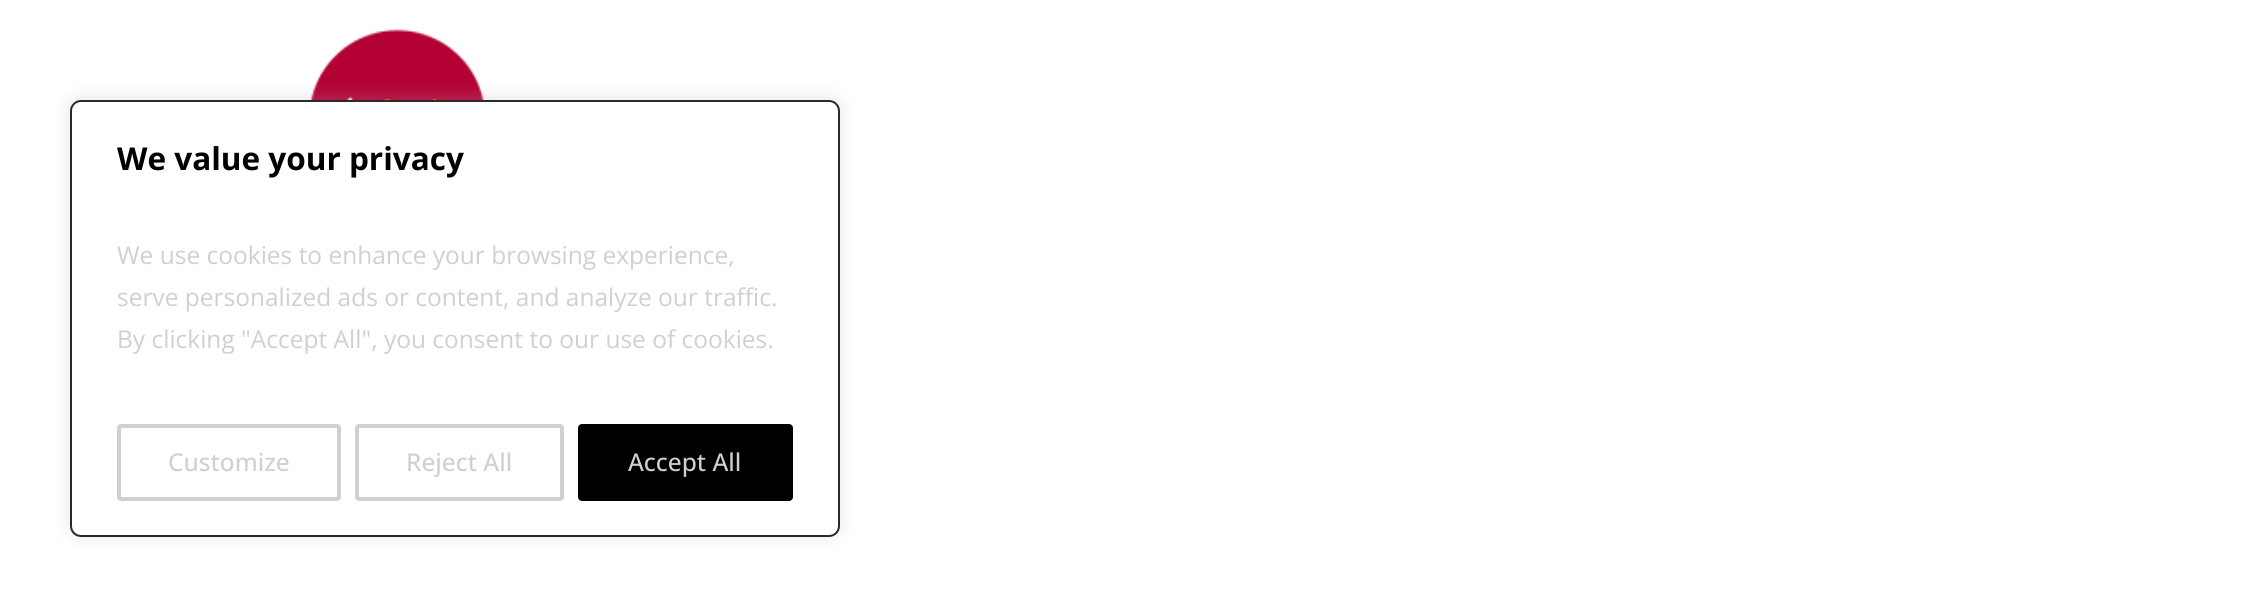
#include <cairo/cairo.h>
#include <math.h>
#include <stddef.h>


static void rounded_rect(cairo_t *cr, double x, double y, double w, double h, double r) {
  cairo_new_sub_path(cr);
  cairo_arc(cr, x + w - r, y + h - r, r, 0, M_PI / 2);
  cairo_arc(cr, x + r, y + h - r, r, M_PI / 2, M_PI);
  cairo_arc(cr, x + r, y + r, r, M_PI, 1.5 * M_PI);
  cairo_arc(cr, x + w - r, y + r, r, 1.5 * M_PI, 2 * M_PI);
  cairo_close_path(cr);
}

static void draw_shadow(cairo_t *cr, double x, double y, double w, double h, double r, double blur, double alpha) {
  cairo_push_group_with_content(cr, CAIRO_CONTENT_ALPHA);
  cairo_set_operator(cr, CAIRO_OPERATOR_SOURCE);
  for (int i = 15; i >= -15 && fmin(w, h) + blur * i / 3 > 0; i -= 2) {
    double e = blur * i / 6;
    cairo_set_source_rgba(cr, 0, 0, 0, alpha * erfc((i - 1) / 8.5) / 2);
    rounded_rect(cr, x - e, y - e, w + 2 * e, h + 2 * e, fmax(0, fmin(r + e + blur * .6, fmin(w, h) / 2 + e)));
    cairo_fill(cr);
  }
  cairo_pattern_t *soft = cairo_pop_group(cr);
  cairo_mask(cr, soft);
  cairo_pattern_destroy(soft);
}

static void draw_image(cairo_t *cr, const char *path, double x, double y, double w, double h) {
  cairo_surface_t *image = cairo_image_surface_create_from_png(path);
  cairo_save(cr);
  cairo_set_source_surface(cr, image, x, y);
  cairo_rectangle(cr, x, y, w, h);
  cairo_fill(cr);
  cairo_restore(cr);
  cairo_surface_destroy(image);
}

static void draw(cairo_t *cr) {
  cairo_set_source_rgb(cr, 1, 1, 1);
  cairo_paint(cr);
  draw_image(cr, "images/1.png", 310, 29, 175, 71);
  cairo_set_source_rgb(cr, 172 / 255.0, 171 / 255.0, 171 / 255.0);
  draw_shadow(cr, 70, 98, 770, 438, 11, 9, 0.3);
  cairo_set_source_rgb(cr, 1, 1, 1);
  rounded_rect(cr, 71, 101, 768, 435, 10);
  cairo_fill_preserve(cr);
  cairo_set_source_rgb(cr, 42 / 255.0, 42 / 255.0, 42 / 255.0);
  cairo_stroke(cr);
  rounded_rect(cr, 119, 426, 220, 73, 2);
  cairo_set_source_rgb(cr, 208 / 255.0, 208 / 255.0, 208 / 255.0);
  cairo_set_line_width(cr, 4);
  cairo_stroke(cr);
  rounded_rect(cr, 357, 426, 205, 73, 2);
  cairo_stroke(cr);
  cairo_set_source_rgb(cr, 0, 0, 0);
  rounded_rect(cr, 580, 426, 211, 73, 2);
  cairo_fill_preserve(cr);
  cairo_stroke(cr);
  cairo_select_font_face(cr, "Open Sans", CAIRO_FONT_SLANT_NORMAL, CAIRO_FONT_WEIGHT_BOLD);
  cairo_set_font_size(cr, 31.5);
  cairo_move_to(cr, 117, 170);
  cairo_show_text(cr, "We value your privacy");
  cairo_select_font_face(cr, "Open Sans", CAIRO_FONT_SLANT_NORMAL, CAIRO_FONT_WEIGHT_NORMAL);
  cairo_set_font_size(cr, 24.5);
  cairo_set_source_rgb(cr, 208 / 255.0, 208 / 255.0, 208 / 255.0);
  cairo_move_to(cr, 117, 264);
  cairo_show_text(cr, "We use cookies to enhance your browsing experience,");
  cairo_move_to(cr, 117, 306);
  cairo_show_text(cr, "serve personalized ads or content, and analyze our traffic.");
  cairo_move_to(cr, 117, 348);
  cairo_show_text(cr, "By clicking \"Accept All\", you consent to our use of cookies.");
  cairo_select_font_face(cr, "Open Sans Medium", CAIRO_FONT_SLANT_NORMAL, CAIRO_FONT_WEIGHT_NORMAL);
  cairo_move_to(cr, 168, 471);
  cairo_show_text(cr, "Customize");
  cairo_move_to(cr, 406, 471);
  cairo_show_text(cr, "Reject All");
  cairo_move_to(cr, 628, 471);
  cairo_show_text(cr, "Accept All");
}

int main(void) {
  cairo_surface_t *surface = cairo_image_surface_create(CAIRO_FORMAT_RGB24, 2262, 606);
  cairo_t *cr = cairo_create(surface);
  cairo_font_options_t *options = cairo_font_options_create();
  cairo_font_options_set_hint_metrics(options, CAIRO_HINT_METRICS_OFF);
  cairo_font_options_set_hint_style(options, CAIRO_HINT_STYLE_NONE);
  cairo_set_font_options(cr, options);
  cairo_set_miter_limit(cr, 4);
  draw(cr);
  cairo_surface_write_to_png(surface, "out.png");
  cairo_font_options_destroy(options);
  cairo_destroy(cr);
  cairo_surface_destroy(surface);
  return 0;
}
